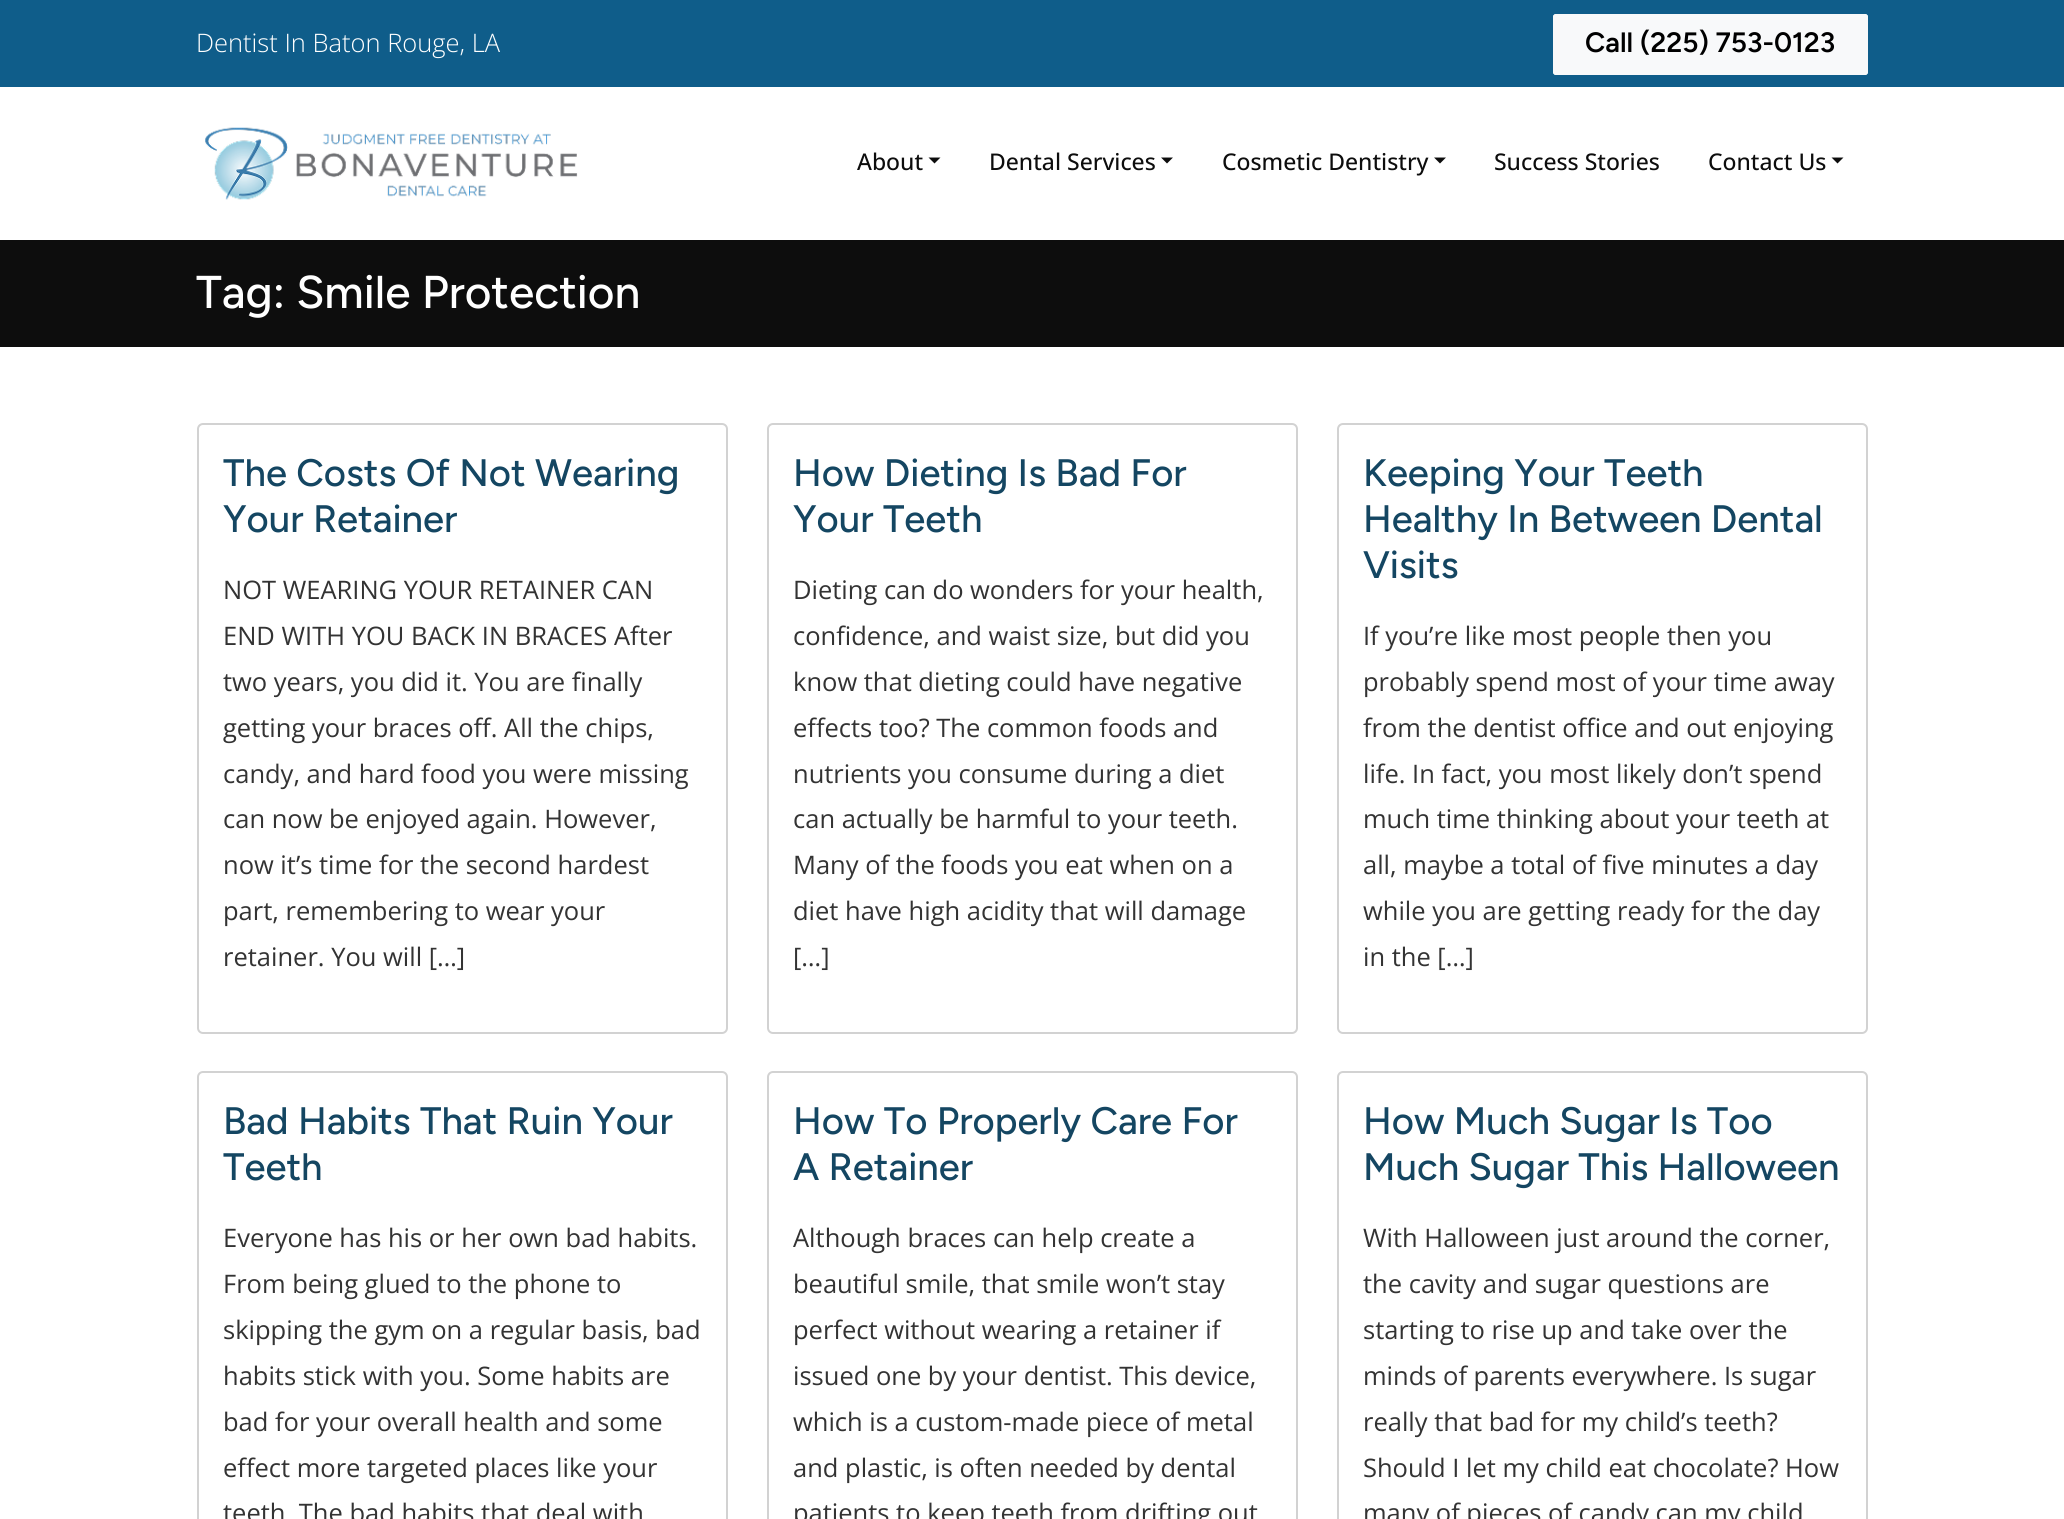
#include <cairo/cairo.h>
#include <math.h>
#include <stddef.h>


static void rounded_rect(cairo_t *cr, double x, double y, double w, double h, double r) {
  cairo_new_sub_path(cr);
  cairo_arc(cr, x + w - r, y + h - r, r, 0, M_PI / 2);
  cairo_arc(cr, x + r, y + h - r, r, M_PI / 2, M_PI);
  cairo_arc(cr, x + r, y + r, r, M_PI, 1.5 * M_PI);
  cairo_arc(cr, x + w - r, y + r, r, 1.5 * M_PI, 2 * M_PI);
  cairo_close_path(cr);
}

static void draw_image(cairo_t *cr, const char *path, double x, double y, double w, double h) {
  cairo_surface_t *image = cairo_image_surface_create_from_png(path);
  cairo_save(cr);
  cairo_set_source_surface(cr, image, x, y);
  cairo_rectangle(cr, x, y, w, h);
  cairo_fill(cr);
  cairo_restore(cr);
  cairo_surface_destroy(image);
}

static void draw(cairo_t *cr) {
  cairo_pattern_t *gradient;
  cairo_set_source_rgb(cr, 1, 1, 1);
  cairo_paint(cr);
  cairo_set_source_rgb(cr, 15 / 255.0, 93 / 255.0, 138 / 255.0);
  cairo_rectangle(cr, 0, 0, 2064, 87);
  cairo_fill(cr);
  cairo_set_source_rgb(cr, 248 / 255.0, 249 / 255.0, 250 / 255.0);
  rounded_rect(cr, 1553, 14, 315, 61, 3);
  cairo_fill(cr);
  gradient = cairo_pattern_create_linear(1710, 15, 1710, 74);
  cairo_pattern_add_color_stop_rgba(gradient, 0, 1, 1, 1, 0.15);
  cairo_pattern_add_color_stop_rgba(gradient, 1, 1, 1, 1, 0);
  cairo_set_source(cr, gradient);
  cairo_pattern_destroy(gradient);
  cairo_rectangle(cr, 1553, 15, 315, 2);
  cairo_fill(cr);
  rounded_rect(cr, 1554, 15, 313, 59, 2);
  cairo_set_source_rgb(cr, 248 / 255.0, 249 / 255.0, 250 / 255.0);
  cairo_stroke(cr);
  draw_image(cr, "images/1.png", 205, 127, 373, 73);
  cairo_set_source_rgb(cr, 13 / 255.0, 13 / 255.0, 13 / 255.0);
  cairo_new_path(cr);
  cairo_move_to(cr, 928.5, 157.5);
  cairo_line_to(cr, 940.5, 157.5);
  cairo_line_to(cr, 934.5, 163.5);
  cairo_close_path(cr);
  cairo_fill(cr);
  cairo_new_path(cr);
  cairo_move_to(cr, 1161, 157.5);
  cairo_line_to(cr, 1173, 157.5);
  cairo_line_to(cr, 1167, 163.5);
  cairo_close_path(cr);
  cairo_fill(cr);
  cairo_new_path(cr);
  cairo_move_to(cr, 1434, 157.5);
  cairo_line_to(cr, 1446, 157.5);
  cairo_line_to(cr, 1440, 163.5);
  cairo_close_path(cr);
  cairo_fill(cr);
  cairo_new_path(cr);
  cairo_move_to(cr, 1831.5, 157.5);
  cairo_line_to(cr, 1843.5, 157.5);
  cairo_line_to(cr, 1837.5, 163.5);
  cairo_close_path(cr);
  cairo_fill(cr);
  cairo_rectangle(cr, 0, 240, 2064, 107);
  cairo_fill(cr);
  rounded_rect(cr, 198, 424, 529, 609, 5);
  cairo_set_source_rgb(cr, 210 / 255.0, 210 / 255.0, 210 / 255.0);
  cairo_stroke(cr);
  rounded_rect(cr, 768, 424, 529, 609, 5);
  cairo_stroke(cr);
  rounded_rect(cr, 1338, 424, 529, 609, 5);
  cairo_stroke(cr);
  rounded_rect(cr, 198, 1072, 529, 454, 5);
  cairo_stroke(cr);
  rounded_rect(cr, 768, 1072, 529, 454, 5);
  cairo_stroke(cr);
  rounded_rect(cr, 1338, 1072, 529, 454, 5);
  cairo_stroke(cr);
  cairo_select_font_face(cr, "Open Sans Light", CAIRO_FONT_SLANT_NORMAL, CAIRO_FONT_WEIGHT_NORMAL);
  cairo_set_font_size(cr, 25.5);
  cairo_set_source_rgb(cr, 1, 1, 1);
  cairo_move_to(cr, 196, 52);
  cairo_show_text(cr, "Dentist In Baton Rouge, LA");
  cairo_select_font_face(cr, "Figtree SemiBold", CAIRO_FONT_SLANT_NORMAL, CAIRO_FONT_WEIGHT_NORMAL);
  cairo_set_font_size(cr, 28);
  cairo_set_source_rgb(cr, 0, 0, 0);
  cairo_move_to(cr, 1585, 52);
  cairo_show_text(cr, "Call (225) 753-0123");
  cairo_select_font_face(cr, "Open Sans Medium", CAIRO_FONT_SLANT_NORMAL, CAIRO_FONT_WEIGHT_NORMAL);
  cairo_set_font_size(cr, 23);
  cairo_set_source_rgb(cr, 13 / 255.0, 13 / 255.0, 13 / 255.0);
  cairo_move_to(cr, 857, 170);
  cairo_show_text(cr, "About");
  cairo_move_to(cr, 989, 170);
  cairo_show_text(cr, "Dental Services");
  cairo_move_to(cr, 1222, 170);
  cairo_show_text(cr, "Cosmetic Dentistry");
  cairo_move_to(cr, 1494, 170);
  cairo_show_text(cr, "Success Stories");
  cairo_move_to(cr, 1708, 170);
  cairo_show_text(cr, "Contact Us");
  cairo_select_font_face(cr, "Figtree Medium", CAIRO_FONT_SLANT_NORMAL, CAIRO_FONT_WEIGHT_NORMAL);
  cairo_set_font_size(cr, 46);
  cairo_set_source_rgb(cr, 1, 1, 1);
  cairo_move_to(cr, 196, 308);
  cairo_show_text(cr, "Tag: Smile Protection");
  cairo_set_font_size(cr, 38.25);
  cairo_set_source_rgb(cr, 20 / 255.0, 70 / 255.0, 98 / 255.0);
  cairo_move_to(cr, 223, 486);
  cairo_show_text(cr, "The Costs Of Not Wearing");
  cairo_move_to(cr, 223, 532);
  cairo_show_text(cr, "Your Retainer");
  cairo_select_font_face(cr, "Open Sans", CAIRO_FONT_SLANT_NORMAL, CAIRO_FONT_WEIGHT_NORMAL);
  cairo_set_font_size(cr, 25.5);
  cairo_set_source_rgb(cr, 51 / 255.0, 51 / 255.0, 51 / 255.0);
  cairo_move_to(cr, 223, 599);
  cairo_show_text(cr, "NOT WEARING YOUR RETAINER CAN");
  cairo_move_to(cr, 223, 645);
  cairo_show_text(cr, "END WITH YOU BACK IN BRACES After");
  cairo_move_to(cr, 223, 691);
  cairo_show_text(cr, "two years, you did it. You are finally");
  cairo_move_to(cr, 223, 737);
  cairo_show_text(cr, "getting your braces off. All the chips,");
  cairo_move_to(cr, 223, 783);
  cairo_show_text(cr, "candy, and hard food you were missing");
  cairo_move_to(cr, 223, 828);
  cairo_show_text(cr, "can now be enjoyed again. However,");
  cairo_move_to(cr, 223, 874);
  cairo_show_text(cr, "now it’s time for the second hardest");
  cairo_move_to(cr, 223, 920);
  cairo_show_text(cr, "part, remembering to wear your");
  cairo_move_to(cr, 223, 966);
  cairo_show_text(cr, "retainer. You will […]");
  cairo_select_font_face(cr, "Figtree Medium", CAIRO_FONT_SLANT_NORMAL, CAIRO_FONT_WEIGHT_NORMAL);
  cairo_set_font_size(cr, 38.25);
  cairo_set_source_rgb(cr, 20 / 255.0, 70 / 255.0, 98 / 255.0);
  cairo_move_to(cr, 793, 486);
  cairo_show_text(cr, "How Dieting Is Bad For");
  cairo_move_to(cr, 793, 532);
  cairo_show_text(cr, "Your Teeth");
  cairo_select_font_face(cr, "Open Sans", CAIRO_FONT_SLANT_NORMAL, CAIRO_FONT_WEIGHT_NORMAL);
  cairo_set_font_size(cr, 25.5);
  cairo_set_source_rgb(cr, 51 / 255.0, 51 / 255.0, 51 / 255.0);
  cairo_move_to(cr, 793, 599);
  cairo_show_text(cr, "Dieting can do wonders for your health,");
  cairo_move_to(cr, 793, 645);
  cairo_show_text(cr, "confidence, and waist size, but did you");
  cairo_move_to(cr, 793, 691);
  cairo_show_text(cr, "know that dieting could have negative");
  cairo_move_to(cr, 793, 737);
  cairo_show_text(cr, "effects too? The common foods and");
  cairo_move_to(cr, 793, 783);
  cairo_show_text(cr, "nutrients you consume during a diet");
  cairo_move_to(cr, 793, 828);
  cairo_show_text(cr, "can actually be harmful to your teeth.");
  cairo_move_to(cr, 793, 874);
  cairo_show_text(cr, "Many of the foods you eat when on a");
  cairo_move_to(cr, 793, 920);
  cairo_show_text(cr, "diet have high acidity that will damage");
  cairo_move_to(cr, 793, 966);
  cairo_show_text(cr, "[…]");
  cairo_select_font_face(cr, "Figtree Medium", CAIRO_FONT_SLANT_NORMAL, CAIRO_FONT_WEIGHT_NORMAL);
  cairo_set_font_size(cr, 38.25);
  cairo_set_source_rgb(cr, 20 / 255.0, 70 / 255.0, 98 / 255.0);
  cairo_move_to(cr, 1363, 486);
  cairo_show_text(cr, "Keeping Your Teeth");
  cairo_move_to(cr, 1363, 532);
  cairo_show_text(cr, "Healthy In Between Dental");
  cairo_move_to(cr, 1363, 578);
  cairo_show_text(cr, "Visits");
  cairo_select_font_face(cr, "Open Sans", CAIRO_FONT_SLANT_NORMAL, CAIRO_FONT_WEIGHT_NORMAL);
  cairo_set_font_size(cr, 25.5);
  cairo_set_source_rgb(cr, 51 / 255.0, 51 / 255.0, 51 / 255.0);
  cairo_move_to(cr, 1363, 645);
  cairo_show_text(cr, "If you’re like most people then you");
  cairo_move_to(cr, 1363, 691);
  cairo_show_text(cr, "probably spend most of your time away");
  cairo_move_to(cr, 1363, 737);
  cairo_show_text(cr, "from the dentist office and out enjoying");
  cairo_move_to(cr, 1363, 783);
  cairo_show_text(cr, "life. In fact, you most likely don’t spend");
  cairo_move_to(cr, 1363, 828);
  cairo_show_text(cr, "much time thinking about your teeth at");
  cairo_move_to(cr, 1363, 874);
  cairo_show_text(cr, "all, maybe a total of five minutes a day");
  cairo_move_to(cr, 1363, 920);
  cairo_show_text(cr, "while you are getting ready for the day");
  cairo_move_to(cr, 1363, 966);
  cairo_show_text(cr, "in the […]");
  cairo_select_font_face(cr, "Figtree Medium", CAIRO_FONT_SLANT_NORMAL, CAIRO_FONT_WEIGHT_NORMAL);
  cairo_set_font_size(cr, 38.25);
  cairo_set_source_rgb(cr, 20 / 255.0, 70 / 255.0, 98 / 255.0);
  cairo_move_to(cr, 223, 1134);
  cairo_show_text(cr, "Bad Habits That Ruin Your");
  cairo_move_to(cr, 223, 1180);
  cairo_show_text(cr, "Teeth");
  cairo_select_font_face(cr, "Open Sans", CAIRO_FONT_SLANT_NORMAL, CAIRO_FONT_WEIGHT_NORMAL);
  cairo_set_font_size(cr, 25.5);
  cairo_set_source_rgb(cr, 51 / 255.0, 51 / 255.0, 51 / 255.0);
  cairo_move_to(cr, 223, 1247);
  cairo_show_text(cr, "Everyone has his or her own bad habits.");
  cairo_move_to(cr, 223, 1293);
  cairo_show_text(cr, "From being glued to the phone to");
  cairo_move_to(cr, 223, 1339);
  cairo_show_text(cr, "skipping the gym on a regular basis, bad");
  cairo_move_to(cr, 223, 1385);
  cairo_show_text(cr, "habits stick with you. Some habits are");
  cairo_move_to(cr, 223, 1431);
  cairo_show_text(cr, "bad for your overall health and some");
  cairo_move_to(cr, 223, 1477);
  cairo_show_text(cr, "effect more targeted places like your");
  cairo_move_to(cr, 223, 1522);
  cairo_show_text(cr, "teeth. The bad habits that deal with");
  cairo_select_font_face(cr, "Figtree Medium", CAIRO_FONT_SLANT_NORMAL, CAIRO_FONT_WEIGHT_NORMAL);
  cairo_set_font_size(cr, 38.25);
  cairo_set_source_rgb(cr, 20 / 255.0, 70 / 255.0, 98 / 255.0);
  cairo_move_to(cr, 793, 1134);
  cairo_show_text(cr, "How To Properly Care For");
  cairo_move_to(cr, 793, 1180);
  cairo_show_text(cr, "A Retainer");
  cairo_select_font_face(cr, "Open Sans", CAIRO_FONT_SLANT_NORMAL, CAIRO_FONT_WEIGHT_NORMAL);
  cairo_set_font_size(cr, 25.5);
  cairo_set_source_rgb(cr, 51 / 255.0, 51 / 255.0, 51 / 255.0);
  cairo_move_to(cr, 793, 1247);
  cairo_show_text(cr, "Although braces can help create a");
  cairo_move_to(cr, 793, 1293);
  cairo_show_text(cr, "beautiful smile, that smile won’t stay");
  cairo_move_to(cr, 793, 1339);
  cairo_show_text(cr, "perfect without wearing a retainer if");
  cairo_move_to(cr, 793, 1385);
  cairo_show_text(cr, "issued one by your dentist. This device,");
  cairo_move_to(cr, 793, 1431);
  cairo_show_text(cr, "which is a custom-made piece of metal");
  cairo_move_to(cr, 793, 1477);
  cairo_show_text(cr, "and plastic, is often needed by dental");
  cairo_move_to(cr, 793, 1522);
  cairo_show_text(cr, "patients to keep teeth from drifting out");
  cairo_select_font_face(cr, "Figtree Medium", CAIRO_FONT_SLANT_NORMAL, CAIRO_FONT_WEIGHT_NORMAL);
  cairo_set_font_size(cr, 38.25);
  cairo_set_source_rgb(cr, 20 / 255.0, 70 / 255.0, 98 / 255.0);
  cairo_move_to(cr, 1363, 1134);
  cairo_show_text(cr, "How Much Sugar Is Too");
  cairo_move_to(cr, 1363, 1180);
  cairo_show_text(cr, "Much Sugar This Halloween");
  cairo_select_font_face(cr, "Open Sans", CAIRO_FONT_SLANT_NORMAL, CAIRO_FONT_WEIGHT_NORMAL);
  cairo_set_font_size(cr, 25.5);
  cairo_set_source_rgb(cr, 51 / 255.0, 51 / 255.0, 51 / 255.0);
  cairo_move_to(cr, 1363, 1247);
  cairo_show_text(cr, "With Halloween just around the corner,");
  cairo_move_to(cr, 1363, 1293);
  cairo_show_text(cr, "the cavity and sugar questions are");
  cairo_move_to(cr, 1363, 1339);
  cairo_show_text(cr, "starting to rise up and take over the");
  cairo_move_to(cr, 1363, 1385);
  cairo_show_text(cr, "minds of parents everywhere. Is sugar");
  cairo_move_to(cr, 1363, 1431);
  cairo_show_text(cr, "really that bad for my child’s teeth?");
  cairo_move_to(cr, 1363, 1477);
  cairo_show_text(cr, "Should I let my child eat chocolate? How");
  cairo_move_to(cr, 1363, 1522);
  cairo_show_text(cr, "many of pieces of candy can my child");
}

int main(void) {
  cairo_surface_t *surface = cairo_image_surface_create(CAIRO_FORMAT_RGB24, 2064, 1519);
  cairo_t *cr = cairo_create(surface);
  cairo_font_options_t *options = cairo_font_options_create();
  cairo_font_options_set_hint_metrics(options, CAIRO_HINT_METRICS_OFF);
  cairo_font_options_set_hint_style(options, CAIRO_HINT_STYLE_NONE);
  cairo_set_font_options(cr, options);
  cairo_set_miter_limit(cr, 4);
  draw(cr);
  cairo_surface_write_to_png(surface, "out.png");
  cairo_font_options_destroy(options);
  cairo_destroy(cr);
  cairo_surface_destroy(surface);
  return 0;
}
